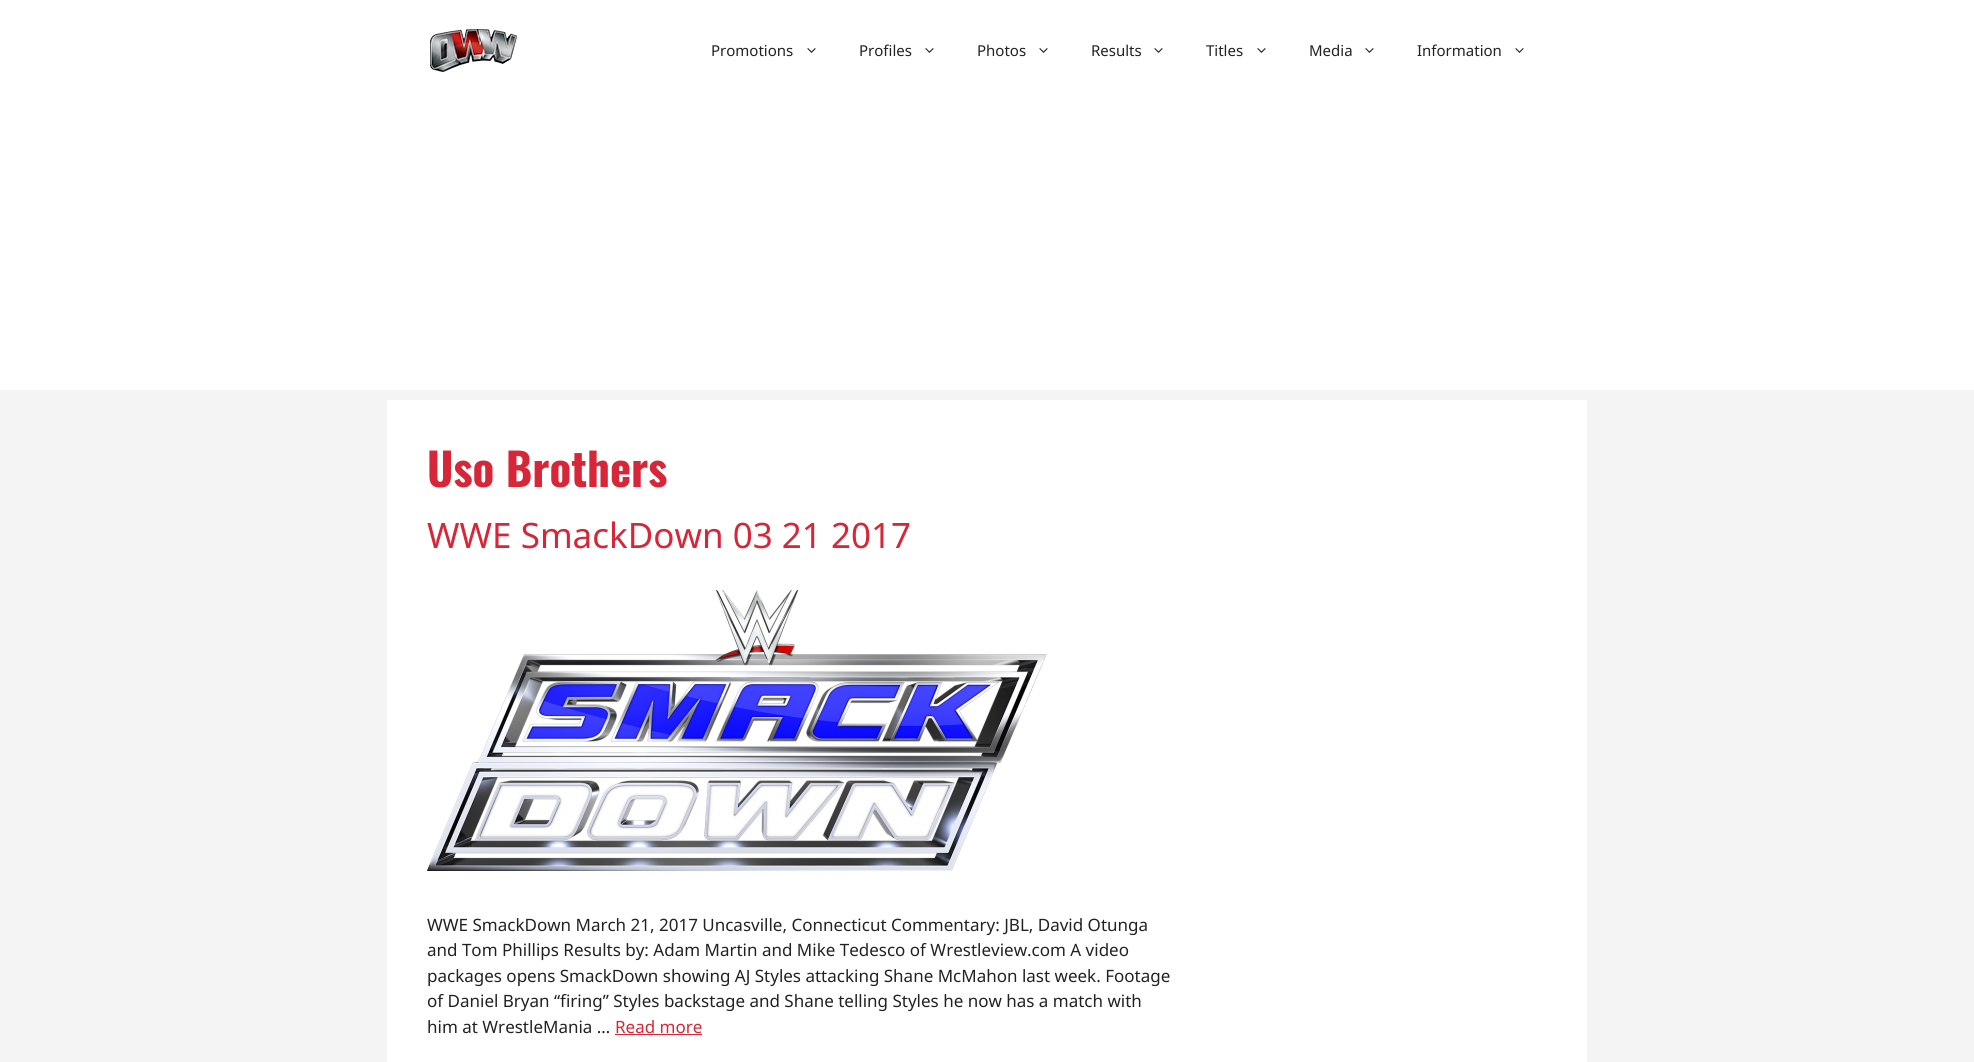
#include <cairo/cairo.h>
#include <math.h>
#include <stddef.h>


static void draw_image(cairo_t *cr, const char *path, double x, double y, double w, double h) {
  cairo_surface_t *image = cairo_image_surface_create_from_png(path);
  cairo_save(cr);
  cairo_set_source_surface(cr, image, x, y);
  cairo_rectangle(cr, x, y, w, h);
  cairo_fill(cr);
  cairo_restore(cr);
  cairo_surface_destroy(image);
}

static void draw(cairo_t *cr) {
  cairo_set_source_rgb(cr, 244 / 255.0, 244 / 255.0, 244 / 255.0);
  cairo_paint(cr);
  cairo_set_source_rgb(cr, 1, 1, 1);
  cairo_rectangle(cr, 0, 0, 1974, 390);
  cairo_fill(cr);
  draw_image(cr, "images/1.png", 430, 29, 87, 43);
  draw_image(cr, "images/2.png", 807, 48, 9, 5);
  draw_image(cr, "images/2.png", 925, 48, 9, 5);
  draw_image(cr, "images/2.png", 1039, 48, 9, 5);
  draw_image(cr, "images/2.png", 1154, 48, 9, 5);
  draw_image(cr, "images/2.png", 1257, 48, 9, 5);
  draw_image(cr, "images/2.png", 1365, 48, 9, 5);
  draw_image(cr, "images/2.png", 1515, 48, 9, 5);
  cairo_rectangle(cr, 387, 400, 1200, 662);
  cairo_fill(cr);
  draw_image(cr, "images/3.png", 427, 590, 620, 281);
  cairo_set_source_rgb(cr, 215 / 255.0, 38 / 255.0, 56 / 255.0);
  cairo_rectangle(cr, 615, 1034, 87, 1);
  cairo_fill(cr);
  cairo_select_font_face(cr, "Noto Sans", CAIRO_FONT_SLANT_NORMAL, CAIRO_FONT_WEIGHT_NORMAL);
  cairo_set_font_size(cr, 15);
  cairo_set_source_rgb(cr, 34 / 255.0, 34 / 255.0, 34 / 255.0);
  cairo_move_to(cr, 711, 56);
  cairo_show_text(cr, "Promotions");
  cairo_move_to(cr, 859, 56);
  cairo_show_text(cr, "Profiles");
  cairo_move_to(cr, 977, 56);
  cairo_show_text(cr, "Photos");
  cairo_move_to(cr, 1091, 56);
  cairo_show_text(cr, "Results");
  cairo_move_to(cr, 1206, 56);
  cairo_show_text(cr, "Titles");
  cairo_move_to(cr, 1309, 56);
  cairo_show_text(cr, "Media");
  cairo_move_to(cr, 1417, 56);
  cairo_show_text(cr, "Information");
  cairo_select_font_face(cr, "Oswald", CAIRO_FONT_SLANT_NORMAL, CAIRO_FONT_WEIGHT_BOLD);
  cairo_set_font_size(cr, 45);
  cairo_set_source_rgb(cr, 215 / 255.0, 38 / 255.0, 56 / 255.0);
  cairo_move_to(cr, 427, 487);
  cairo_show_text(cr, "Uso Brothers");
  cairo_select_font_face(cr, "Noto Sans", CAIRO_FONT_SLANT_NORMAL, CAIRO_FONT_WEIGHT_NORMAL);
  cairo_set_font_size(cr, 35);
  cairo_move_to(cr, 427, 548);
  cairo_show_text(cr, "WWE SmackDown 03 21 2017");
  cairo_set_font_size(cr, 17);
  cairo_set_source_rgb(cr, 34 / 255.0, 34 / 255.0, 34 / 255.0);
  cairo_move_to(cr, 427, 931);
  cairo_show_text(cr, "WWE SmackDown March 21, 2017 Uncasville, Connecticut Commentary: JBL, David Otunga");
  cairo_move_to(cr, 427, 956);
  cairo_show_text(cr, "and Tom Phillips Results by: Adam Martin and Mike Tedesco of Wrestleview.com A video");
  cairo_move_to(cr, 427, 982);
  cairo_show_text(cr, "packages opens SmackDown showing AJ Styles attacking Shane McMahon last week. Footage");
  cairo_move_to(cr, 427, 1007);
  cairo_show_text(cr, "of Daniel Bryan “firing” Styles backstage and Shane telling Styles he now has a match with");
  cairo_move_to(cr, 427, 1033);
  cairo_show_text(cr, "him at WrestleMania …");
  cairo_set_source_rgb(cr, 215 / 255.0, 38 / 255.0, 56 / 255.0);
  cairo_move_to(cr, 615, 1033);
  cairo_show_text(cr, "Read more");
}

int main(void) {
  cairo_surface_t *surface = cairo_image_surface_create(CAIRO_FORMAT_RGB24, 1974, 1062);
  cairo_t *cr = cairo_create(surface);
  cairo_font_options_t *options = cairo_font_options_create();
  cairo_font_options_set_hint_metrics(options, CAIRO_HINT_METRICS_OFF);
  cairo_font_options_set_hint_style(options, CAIRO_HINT_STYLE_NONE);
  cairo_set_font_options(cr, options);
  cairo_set_miter_limit(cr, 4);
  draw(cr);
  cairo_surface_write_to_png(surface, "out.png");
  cairo_font_options_destroy(options);
  cairo_destroy(cr);
  cairo_surface_destroy(surface);
  return 0;
}
